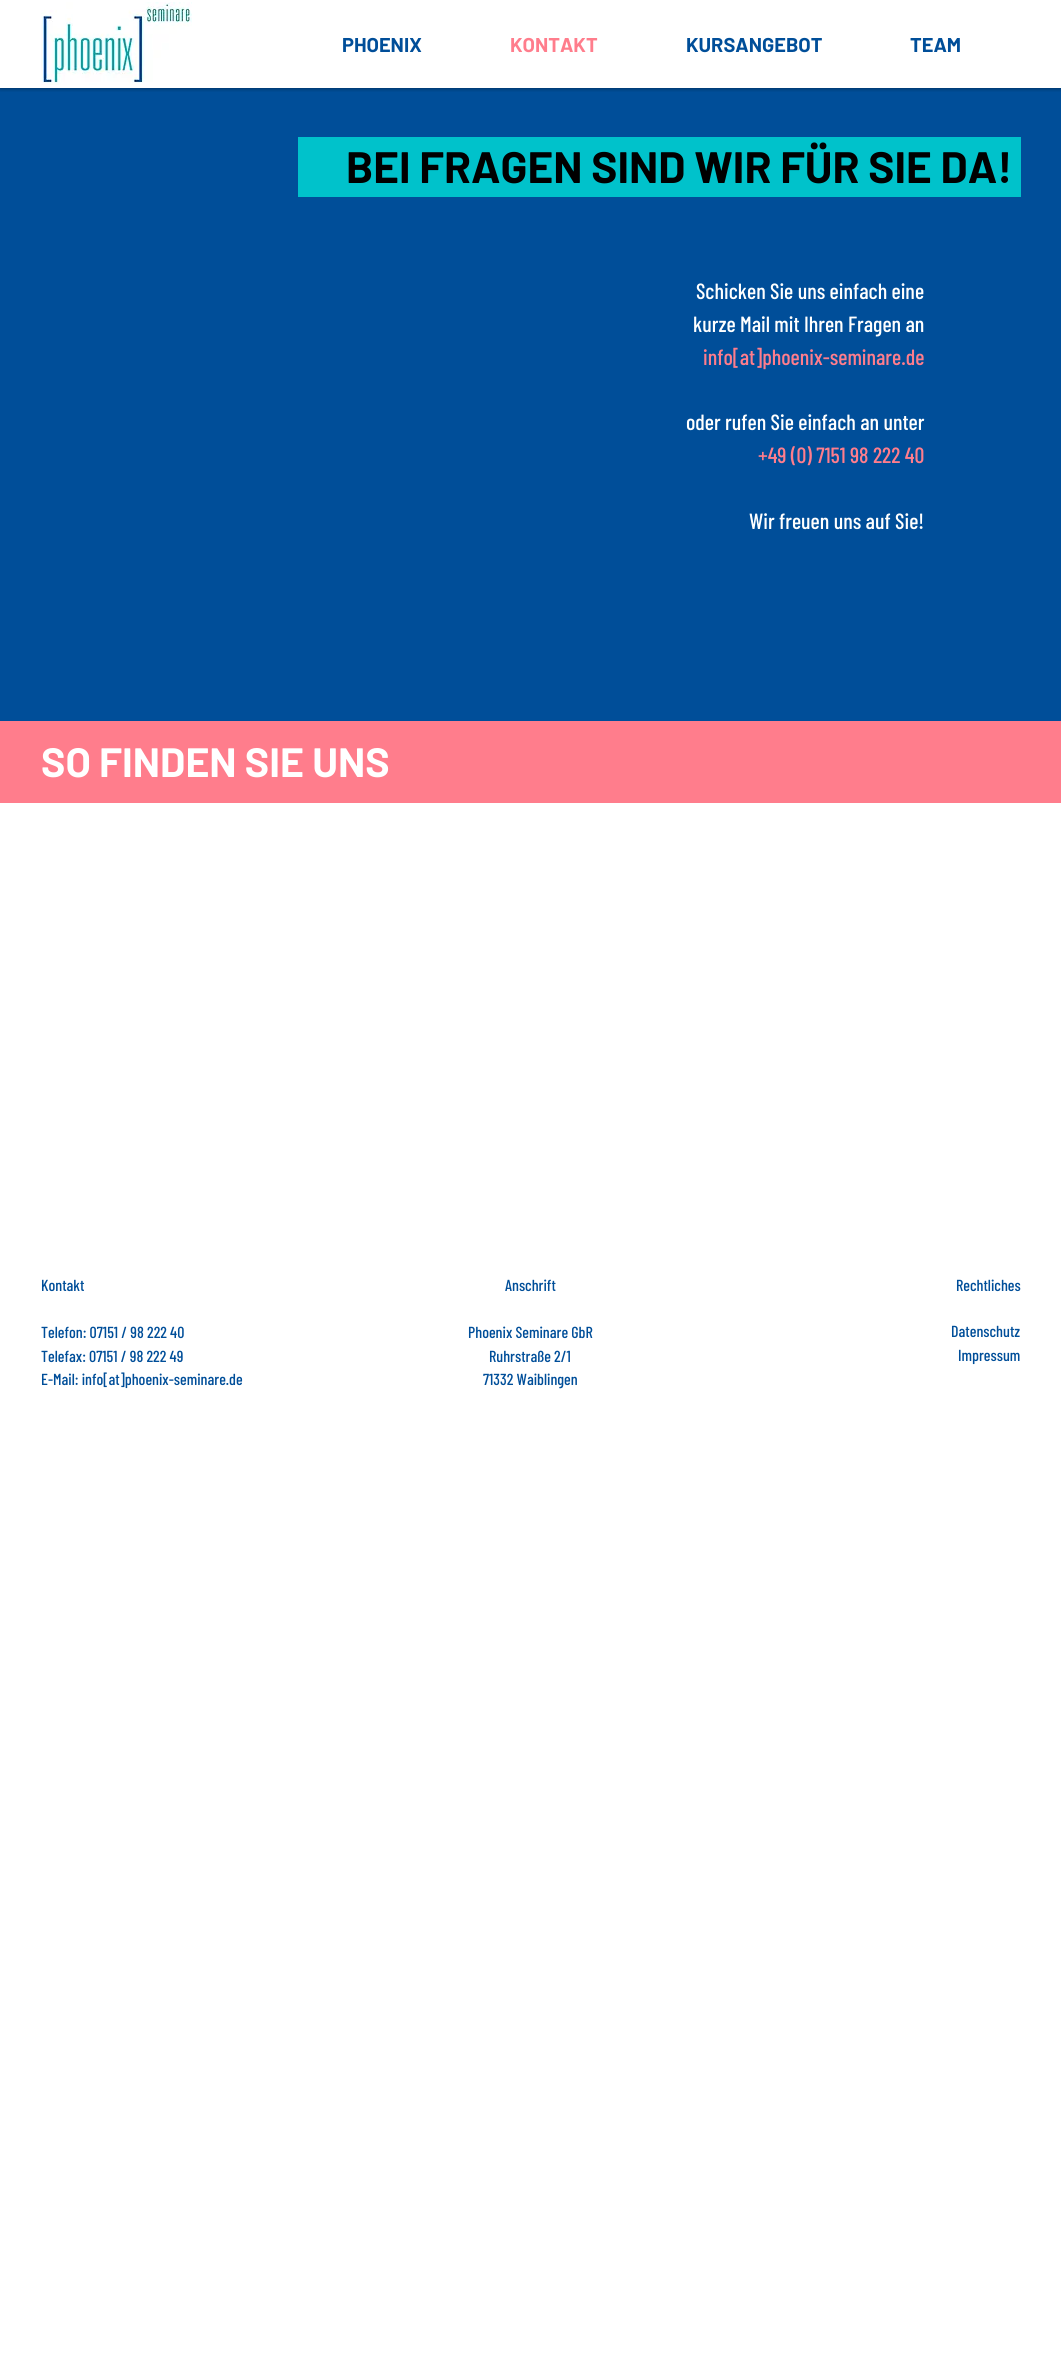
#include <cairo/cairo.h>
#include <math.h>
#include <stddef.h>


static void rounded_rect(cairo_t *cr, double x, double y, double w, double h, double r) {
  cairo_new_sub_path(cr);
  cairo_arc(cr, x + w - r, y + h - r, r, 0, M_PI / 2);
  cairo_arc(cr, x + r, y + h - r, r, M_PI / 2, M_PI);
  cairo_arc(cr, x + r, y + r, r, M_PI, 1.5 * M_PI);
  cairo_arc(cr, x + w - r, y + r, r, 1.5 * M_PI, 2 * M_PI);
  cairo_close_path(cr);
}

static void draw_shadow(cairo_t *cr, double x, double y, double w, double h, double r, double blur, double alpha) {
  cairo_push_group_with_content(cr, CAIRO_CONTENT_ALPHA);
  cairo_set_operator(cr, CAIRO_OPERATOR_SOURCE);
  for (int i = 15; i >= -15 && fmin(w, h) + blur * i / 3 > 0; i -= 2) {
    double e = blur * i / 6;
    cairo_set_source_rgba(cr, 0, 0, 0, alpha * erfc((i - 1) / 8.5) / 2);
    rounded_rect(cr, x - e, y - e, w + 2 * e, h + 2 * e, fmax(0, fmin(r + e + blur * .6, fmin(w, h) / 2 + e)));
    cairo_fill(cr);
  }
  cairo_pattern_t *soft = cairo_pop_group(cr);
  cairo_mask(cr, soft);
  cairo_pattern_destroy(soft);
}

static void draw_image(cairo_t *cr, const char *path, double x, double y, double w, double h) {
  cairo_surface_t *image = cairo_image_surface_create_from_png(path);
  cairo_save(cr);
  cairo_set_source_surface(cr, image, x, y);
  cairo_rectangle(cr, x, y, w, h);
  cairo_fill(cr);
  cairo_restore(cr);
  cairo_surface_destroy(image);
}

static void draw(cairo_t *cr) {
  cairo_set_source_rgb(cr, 1, 1, 1);
  cairo_paint(cr);
  cairo_set_source_rgb(cr, 0, 78 / 255.0, 153 / 255.0);
  cairo_rectangle(cr, 0, 88, 1061, 633);
  cairo_fill(cr);
  cairo_save(cr);
  cairo_rectangle(cr, 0, 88, 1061, 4);
  cairo_clip(cr);
  cairo_set_source_rgb(cr, 0, 0, 0);
  draw_shadow(cr, 0, 0, 1061, 88, 0, 2.5, 0.5);
  cairo_restore(cr);
  draw_image(cr, "images/1.png", 41, 2, 151, 83);
  cairo_set_source_rgb(cr, 0, 194 / 255.0, 203 / 255.0);
  cairo_rectangle(cr, 298, 137, 723, 60);
  cairo_fill(cr);
  cairo_set_source_rgb(cr, 1, 125 / 255.0, 140 / 255.0);
  cairo_rectangle(cr, 0, 721, 1061, 82);
  cairo_fill(cr);
  cairo_select_font_face(cr, "Barlow", CAIRO_FONT_SLANT_NORMAL, CAIRO_FONT_WEIGHT_BOLD);
  cairo_set_font_size(cr, 20);
  cairo_set_source_rgb(cr, 0, 78 / 255.0, 153 / 255.0);
  cairo_move_to(cr, 342, 52);
  cairo_show_text(cr, "PHOENIX");
  cairo_set_source_rgb(cr, 1, 125 / 255.0, 140 / 255.0);
  cairo_move_to(cr, 510, 52);
  cairo_show_text(cr, "KONTAKT");
  cairo_set_source_rgb(cr, 0, 78 / 255.0, 153 / 255.0);
  cairo_move_to(cr, 686, 52);
  cairo_show_text(cr, "KURSANGEBOT");
  cairo_move_to(cr, 910, 52);
  cairo_show_text(cr, "TEAM");
  cairo_set_font_size(cr, 44);
  cairo_set_source_rgb(cr, 0, 0, 0);
  cairo_move_to(cr, 346, 183);
  cairo_show_text(cr, "BEI FRAGEN SIND WIR FÜR SIE DA!");
  cairo_select_font_face(cr, "Barlow Condensed Medium", CAIRO_FONT_SLANT_NORMAL, CAIRO_FONT_WEIGHT_NORMAL);
  cairo_set_font_size(cr, 22);
  cairo_set_source_rgb(cr, 1, 1, 1);
  cairo_move_to(cr, 696, 299);
  cairo_show_text(cr, "Schicken Sie uns einfach eine");
  cairo_move_to(cr, 693, 332);
  cairo_show_text(cr, "kurze Mail mit Ihren Fragen an");
  cairo_set_source_rgb(cr, 1, 125 / 255.0, 140 / 255.0);
  cairo_move_to(cr, 703, 365);
  cairo_show_text(cr, "info[at]phoenix-seminare.de");
  cairo_set_source_rgb(cr, 1, 1, 1);
  cairo_move_to(cr, 686, 430);
  cairo_show_text(cr, "oder rufen Sie einfach an unter");
  cairo_set_source_rgb(cr, 1, 125 / 255.0, 140 / 255.0);
  cairo_move_to(cr, 758, 463);
  cairo_show_text(cr, "+49 (0) 7151 98 222 40");
  cairo_set_source_rgb(cr, 1, 1, 1);
  cairo_move_to(cr, 749, 529);
  cairo_show_text(cr, "Wir freuen uns auf Sie!");
  cairo_select_font_face(cr, "Barlow", CAIRO_FONT_SLANT_NORMAL, CAIRO_FONT_WEIGHT_BOLD);
  cairo_set_font_size(cr, 41);
  cairo_move_to(cr, 41, 777);
  cairo_show_text(cr, "SO FINDEN SIE UNS");
  cairo_select_font_face(cr, "Barlow Condensed Medium", CAIRO_FONT_SLANT_NORMAL, CAIRO_FONT_WEIGHT_NORMAL);
  cairo_set_font_size(cr, 16);
  cairo_set_source_rgb(cr, 0, 78 / 255.0, 153 / 255.0);
  cairo_move_to(cr, 41, 1291);
  cairo_show_text(cr, "Kontakt");
  cairo_move_to(cr, 41, 1338);
  cairo_show_text(cr, "Telefon: 07151 / 98 222 40");
  cairo_move_to(cr, 41, 1362);
  cairo_show_text(cr, "Telefax: 07151 / 98 222 49");
  cairo_move_to(cr, 41, 1385);
  cairo_show_text(cr, "E-Mail: info[at]phoenix-seminare.de");
  cairo_move_to(cr, 505, 1291);
  cairo_show_text(cr, "Anschrift");
  cairo_move_to(cr, 468, 1338);
  cairo_show_text(cr, "Phoenix Seminare GbR");
  cairo_move_to(cr, 489, 1362);
  cairo_show_text(cr, "Ruhrstraße 2/1");
  cairo_move_to(cr, 483, 1385);
  cairo_show_text(cr, "71332 Waiblingen");
  cairo_move_to(cr, 956, 1291);
  cairo_show_text(cr, "Rechtliches");
  cairo_move_to(cr, 951, 1337);
  cairo_show_text(cr, "Datenschutz");
  cairo_move_to(cr, 958, 1361);
  cairo_show_text(cr, "Impressum");
}

int main(void) {
  cairo_surface_t *surface = cairo_image_surface_create(CAIRO_FORMAT_RGB24, 1061, 2379);
  cairo_t *cr = cairo_create(surface);
  cairo_font_options_t *options = cairo_font_options_create();
  cairo_font_options_set_hint_metrics(options, CAIRO_HINT_METRICS_OFF);
  cairo_font_options_set_hint_style(options, CAIRO_HINT_STYLE_NONE);
  cairo_set_font_options(cr, options);
  cairo_set_miter_limit(cr, 4);
  draw(cr);
  cairo_surface_write_to_png(surface, "out.png");
  cairo_font_options_destroy(options);
  cairo_destroy(cr);
  cairo_surface_destroy(surface);
  return 0;
}
